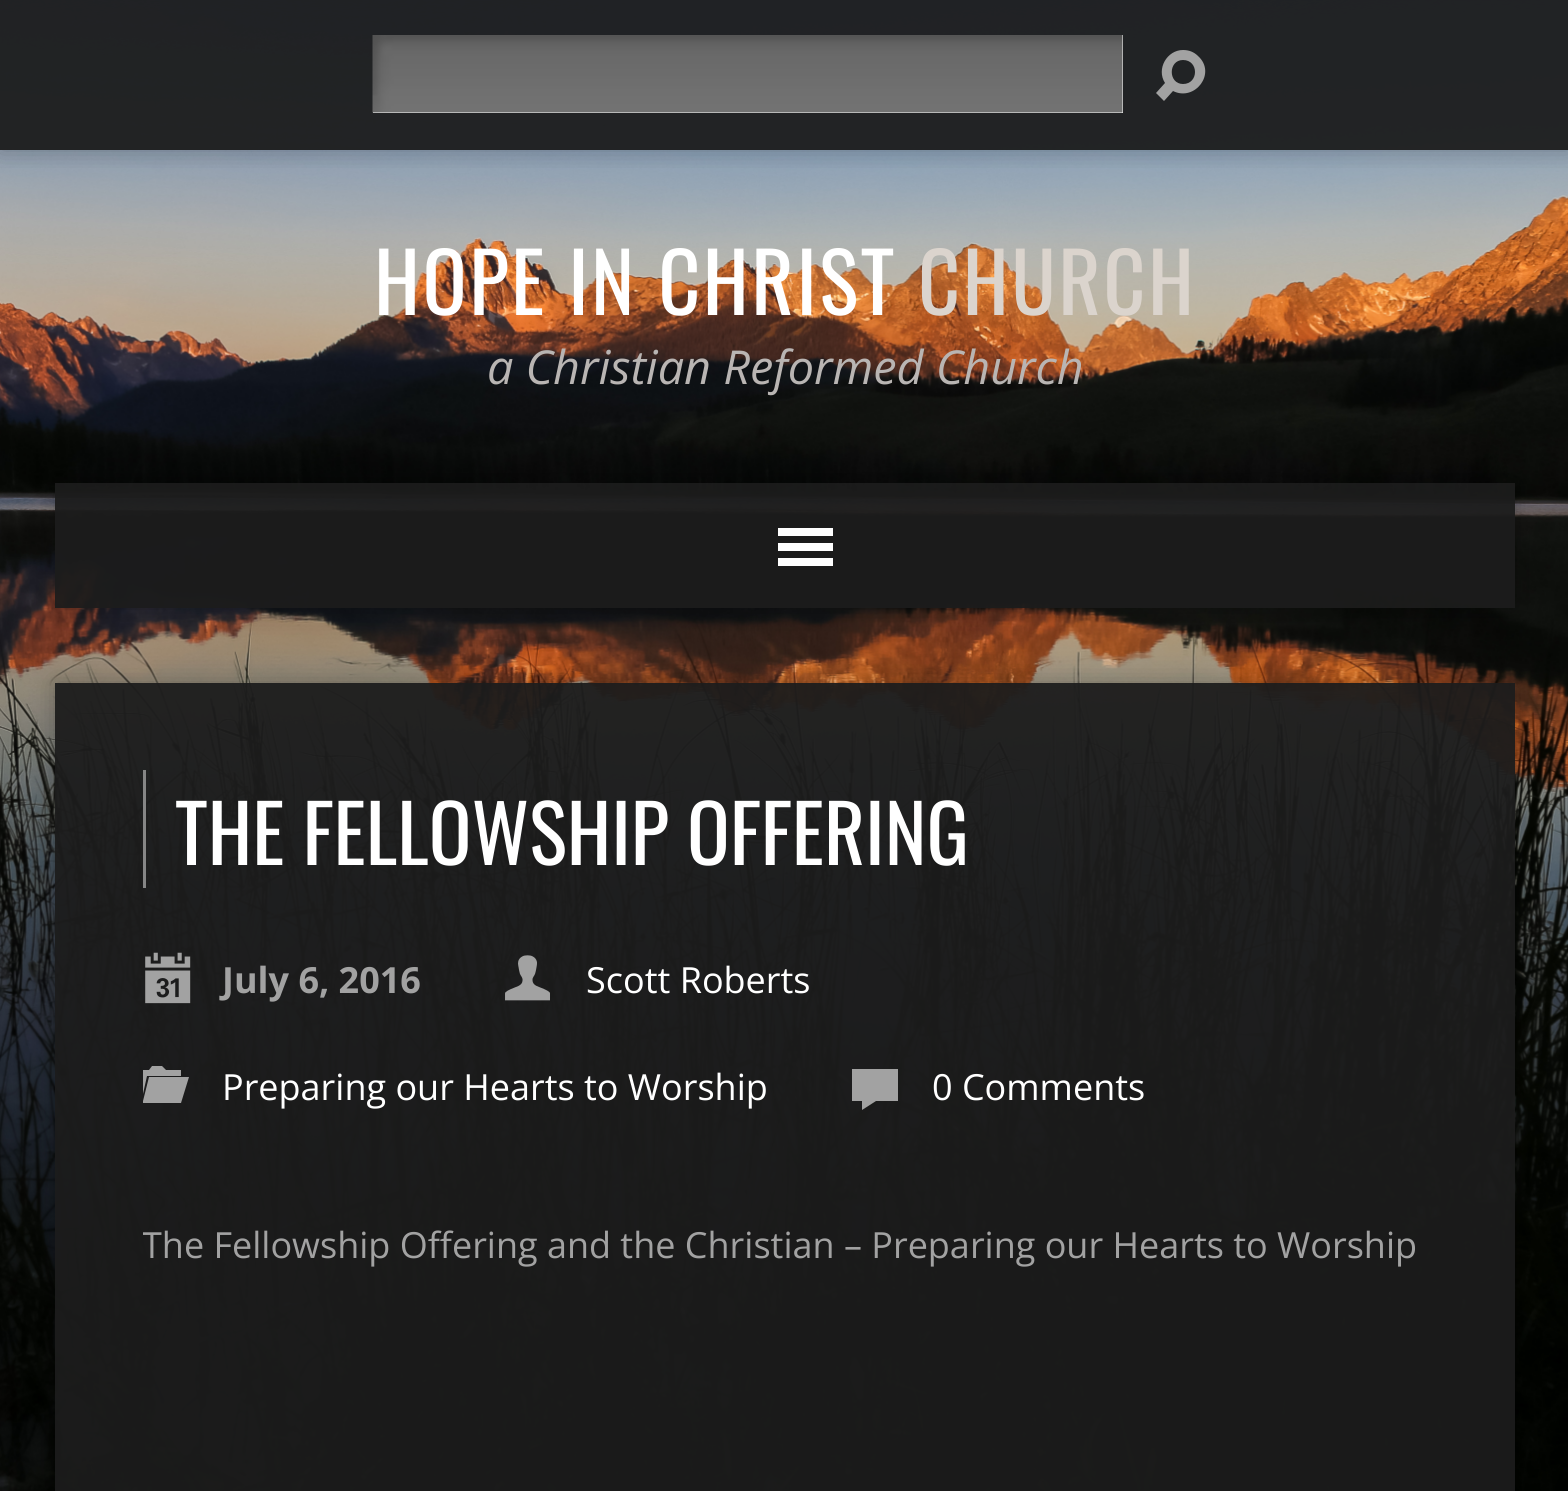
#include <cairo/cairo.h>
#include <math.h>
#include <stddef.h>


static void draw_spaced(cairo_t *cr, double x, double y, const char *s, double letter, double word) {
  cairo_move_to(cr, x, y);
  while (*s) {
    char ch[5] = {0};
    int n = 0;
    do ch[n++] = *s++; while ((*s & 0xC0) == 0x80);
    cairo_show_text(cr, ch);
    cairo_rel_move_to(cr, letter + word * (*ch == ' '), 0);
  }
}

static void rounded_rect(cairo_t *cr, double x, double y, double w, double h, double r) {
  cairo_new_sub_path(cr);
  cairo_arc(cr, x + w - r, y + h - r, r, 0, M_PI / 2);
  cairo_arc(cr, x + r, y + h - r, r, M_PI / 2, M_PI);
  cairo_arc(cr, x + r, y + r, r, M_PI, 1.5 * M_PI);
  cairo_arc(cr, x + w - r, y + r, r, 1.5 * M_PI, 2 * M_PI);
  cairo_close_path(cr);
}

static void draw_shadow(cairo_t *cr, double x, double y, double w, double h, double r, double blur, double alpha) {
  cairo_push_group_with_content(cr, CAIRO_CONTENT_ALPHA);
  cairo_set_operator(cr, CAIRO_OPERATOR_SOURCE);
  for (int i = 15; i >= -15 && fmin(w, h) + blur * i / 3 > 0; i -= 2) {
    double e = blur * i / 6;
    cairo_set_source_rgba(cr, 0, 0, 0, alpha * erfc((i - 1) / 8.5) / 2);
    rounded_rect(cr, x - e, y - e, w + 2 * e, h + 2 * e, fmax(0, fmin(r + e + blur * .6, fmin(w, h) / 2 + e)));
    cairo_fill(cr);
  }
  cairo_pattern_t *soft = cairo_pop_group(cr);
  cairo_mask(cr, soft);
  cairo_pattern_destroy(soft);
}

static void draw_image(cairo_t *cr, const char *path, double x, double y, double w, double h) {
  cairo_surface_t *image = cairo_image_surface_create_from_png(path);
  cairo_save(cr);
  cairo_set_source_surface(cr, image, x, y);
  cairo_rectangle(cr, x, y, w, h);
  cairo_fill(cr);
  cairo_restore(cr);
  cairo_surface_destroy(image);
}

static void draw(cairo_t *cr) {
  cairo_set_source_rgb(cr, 1, 1, 1);
  cairo_paint(cr);
  draw_image(cr, "images/1.png", 0, 0, 1568, 1491);
  cairo_save(cr);
  cairo_rectangle(cr, 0, 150, 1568, 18);
  cairo_clip(cr);
  cairo_set_source_rgb(cr, 0, 0, 0);
  draw_shadow(cr, 0, 0, 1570, 150, 0, 12.5, 0.25);
  cairo_restore(cr);
  cairo_set_source_rgba(cr, 28 / 255.0, 28 / 255.0, 28 / 255.0, 0.94);
  cairo_rectangle(cr, 0, 0, 1568, 150);
  cairo_fill(cr);
  cairo_set_source_rgb(cr, 1, 1, 1);
  cairo_rectangle(cr, 373, 35, 750, 78);
  cairo_fill(cr);
  draw_image(cr, "images/2.png", 372, 35, 751, 78);
  cairo_set_source_rgb(cr, 162 / 255.0, 162 / 255.0, 162 / 255.0);
  cairo_new_path(cr);
  cairo_move_to(cr, 1183, 50);
  cairo_curve_to(cr, 1167, 50, 1156, 69, 1165, 83);
  cairo_line_to(cr, 1156, 93);
  cairo_line_to(cr, 1164, 101);
  cairo_line_to(cr, 1173, 91);
  cairo_curve_to(cr, 1195, 102, 1217, 73, 1198, 56);
  cairo_curve_to(cr, 1194, 52, 1189, 50, 1183, 50);
  cairo_close_path(cr);
  cairo_move_to(cr, 1183, 60);
  cairo_curve_to(cr, 1199, 60, 1199, 84, 1183, 84);
  cairo_curve_to(cr, 1168, 84, 1168, 60, 1183, 60);
  cairo_close_path(cr);
  cairo_fill(cr);
  cairo_save(cr);
  cairo_set_fill_rule(cr, CAIRO_FILL_RULE_EVEN_ODD);
  cairo_new_path(cr);
  cairo_move_to(cr, 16, 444);
  cairo_line_to(cr, 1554, 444);
  cairo_line_to(cr, 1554, 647);
  cairo_line_to(cr, 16, 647);
  cairo_close_path(cr);
  cairo_move_to(cr, 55, 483);
  cairo_line_to(cr, 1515, 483);
  cairo_line_to(cr, 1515, 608);
  cairo_line_to(cr, 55, 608);
  cairo_close_path(cr);
  cairo_clip(cr);
  cairo_set_source_rgb(cr, 0, 0, 0);
  draw_shadow(cr, 55, 483, 1460, 125, 0, 12.5, 0.25);
  cairo_restore(cr);
  cairo_set_source_rgba(cr, 28 / 255.0, 28 / 255.0, 28 / 255.0, 0.94);
  cairo_rectangle(cr, 55, 483, 1460, 125);
  cairo_fill(cr);
  cairo_set_source_rgb(cr, 1, 1, 1);
  cairo_rectangle(cr, 778, 528, 55, 8);
  cairo_fill(cr);
  cairo_rectangle(cr, 778, 543, 55, 8);
  cairo_fill(cr);
  cairo_rectangle(cr, 778, 558, 55, 8);
  cairo_fill(cr);
  cairo_save(cr);
  cairo_set_fill_rule(cr, CAIRO_FILL_RULE_EVEN_ODD);
  cairo_new_path(cr);
  cairo_move_to(cr, 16, 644);
  cairo_line_to(cr, 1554, 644);
  cairo_line_to(cr, 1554, 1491);
  cairo_line_to(cr, 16, 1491);
  cairo_close_path(cr);
  cairo_move_to(cr, 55, 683);
  cairo_line_to(cr, 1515, 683);
  cairo_line_to(cr, 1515, 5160);
  cairo_line_to(cr, 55, 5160);
  cairo_close_path(cr);
  cairo_clip(cr);
  cairo_set_source_rgb(cr, 0, 0, 0);
  draw_shadow(cr, 55, 683, 1460, 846, 0, 12.5, 0.25);
  cairo_restore(cr);
  cairo_set_source_rgba(cr, 28 / 255.0, 28 / 255.0, 28 / 255.0, 0.94);
  cairo_rectangle(cr, 55, 683, 1460, 808);
  cairo_fill(cr);
  cairo_set_source_rgb(cr, 134 / 255.0, 134 / 255.0, 134 / 255.0);
  cairo_rectangle(cr, 143, 770, 3, 118);
  cairo_fill(cr);
  draw_image(cr, "images/3.png", 145, 952, 46, 52);
  draw_image(cr, "images/4.png", 505, 955, 45, 46);
  cairo_save(cr);
  cairo_rectangle(cr, 143, 770, 1285, 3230);
  cairo_clip(cr);
  cairo_set_source_rgb(cr, 162 / 255.0, 162 / 255.0, 162 / 255.0);
  cairo_new_path(cr);
  cairo_move_to(cr, 152, 1066);
  cairo_line_to(cr, 149, 1070);
  cairo_line_to(cr, 142, 1070);
  cairo_line_to(cr, 143, 1094);
  cairo_line_to(cr, 147, 1076);
  cairo_line_to(cr, 181, 1076);
  cairo_line_to(cr, 181, 1070);
  cairo_line_to(cr, 166, 1070);
  cairo_line_to(cr, 162, 1066);
  cairo_close_path(cr);
  cairo_move_to(cr, 143, 1101);
  cairo_line_to(cr, 142, 1103);
  cairo_line_to(cr, 181, 1103);
  cairo_line_to(cr, 189, 1077);
  cairo_line_to(cr, 149, 1077);
  cairo_close_path(cr);
  cairo_fill(cr);
  cairo_restore(cr);
  cairo_set_source_rgb(cr, 162 / 255.0, 162 / 255.0, 162 / 255.0);
  cairo_new_path(cr);
  cairo_move_to(cr, 852, 1069);
  cairo_line_to(cr, 852, 1101);
  cairo_line_to(cr, 862, 1101);
  cairo_line_to(cr, 862, 1110);
  cairo_line_to(cr, 876, 1101);
  cairo_line_to(cr, 898, 1101);
  cairo_line_to(cr, 898, 1069);
  cairo_close_path(cr);
  cairo_fill(cr);
  cairo_select_font_face(cr, "Oswald", CAIRO_FONT_SLANT_NORMAL, CAIRO_FONT_WEIGHT_NORMAL);
  cairo_set_font_size(cr, 82);
  cairo_set_source_rgb(cr, 1, 1, 1);
  draw_spaced(cr, 374, 315, "HOPE IN CHRIST", 2.5, 0);
  cairo_set_source_rgb(cr, 219 / 255.0, 212 / 255.0, 205 / 255.0);
  draw_spaced(cr, 918, 315, "CHURCH", 2.5, 0);
  cairo_select_font_face(cr, "Open Sans", CAIRO_FONT_SLANT_ITALIC, CAIRO_FONT_WEIGHT_NORMAL);
  cairo_set_font_size(cr, 46.75);
  cairo_set_source_rgb(cr, 185 / 255.0, 181 / 255.0, 179 / 255.0);
  cairo_move_to(cr, 487, 384);
  cairo_show_text(cr, "a Christian Reformed Church");
  cairo_select_font_face(cr, "Oswald", CAIRO_FONT_SLANT_NORMAL, CAIRO_FONT_WEIGHT_NORMAL);
  cairo_set_font_size(cr, 79.25);
  cairo_set_source_rgb(cr, 1, 1, 1);
  cairo_move_to(cr, 175, 865);
  cairo_show_text(cr, "THE FELLOWSHIP OFFERING");
  cairo_select_font_face(cr, "Open Sans", CAIRO_FONT_SLANT_NORMAL, CAIRO_FONT_WEIGHT_BOLD);
  cairo_set_font_size(cr, 36);
  cairo_set_source_rgb(cr, 162 / 255.0, 162 / 255.0, 162 / 255.0);
  cairo_move_to(cr, 222, 993);
  cairo_show_text(cr, "July 6, 2016");
  cairo_select_font_face(cr, "Open Sans", CAIRO_FONT_SLANT_NORMAL, CAIRO_FONT_WEIGHT_NORMAL);
  cairo_set_source_rgb(cr, 1, 1, 1);
  cairo_move_to(cr, 586, 993);
  cairo_show_text(cr, "Scott Roberts");
  cairo_move_to(cr, 222, 1100);
  cairo_show_text(cr, "Preparing our Hearts to Worship");
  cairo_move_to(cr, 932, 1100);
  cairo_show_text(cr, "0 Comments");
  cairo_save(cr);
  cairo_rectangle(cr, 143, 770, 1285, 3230);
  cairo_clip(cr);
  cairo_set_source_rgb(cr, 162 / 255.0, 162 / 255.0, 162 / 255.0);
  cairo_move_to(cr, 142, 1258);
  cairo_show_text(cr, "The Fellowship Offering and the Christian – Preparing our Hearts to Worship");
  cairo_restore(cr);
}

int main(void) {
  cairo_surface_t *surface = cairo_image_surface_create(CAIRO_FORMAT_RGB24, 1568, 1491);
  cairo_t *cr = cairo_create(surface);
  cairo_font_options_t *options = cairo_font_options_create();
  cairo_font_options_set_hint_metrics(options, CAIRO_HINT_METRICS_OFF);
  cairo_font_options_set_hint_style(options, CAIRO_HINT_STYLE_NONE);
  cairo_set_font_options(cr, options);
  cairo_set_miter_limit(cr, 4);
  draw(cr);
  cairo_surface_write_to_png(surface, "out.png");
  cairo_font_options_destroy(options);
  cairo_destroy(cr);
  cairo_surface_destroy(surface);
  return 0;
}
